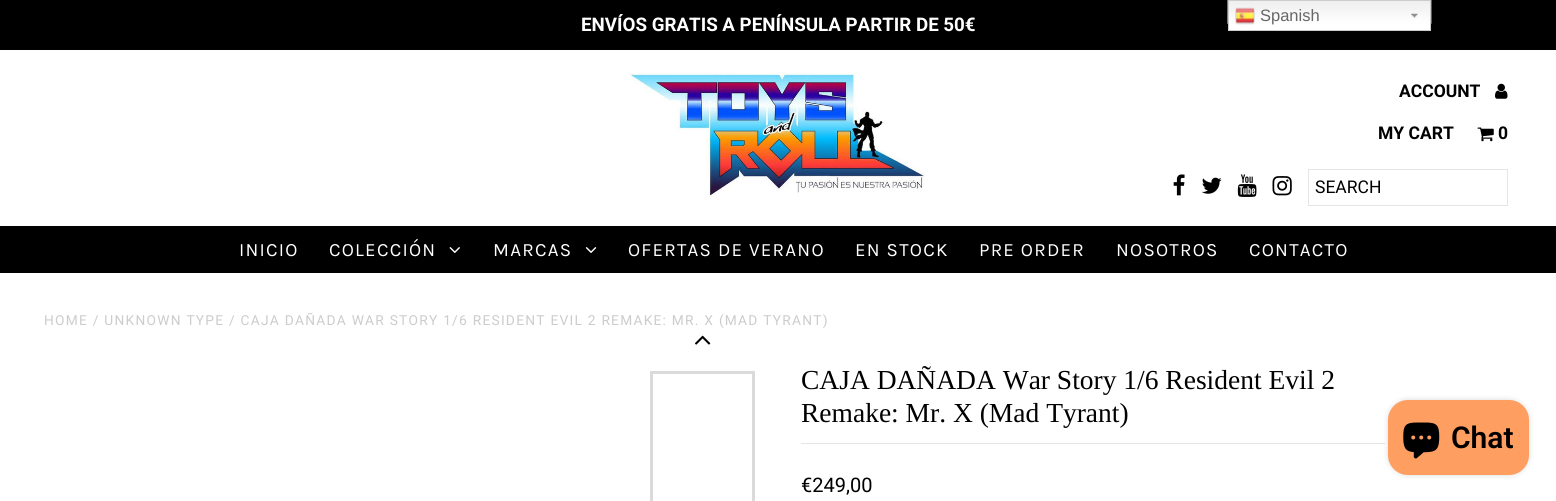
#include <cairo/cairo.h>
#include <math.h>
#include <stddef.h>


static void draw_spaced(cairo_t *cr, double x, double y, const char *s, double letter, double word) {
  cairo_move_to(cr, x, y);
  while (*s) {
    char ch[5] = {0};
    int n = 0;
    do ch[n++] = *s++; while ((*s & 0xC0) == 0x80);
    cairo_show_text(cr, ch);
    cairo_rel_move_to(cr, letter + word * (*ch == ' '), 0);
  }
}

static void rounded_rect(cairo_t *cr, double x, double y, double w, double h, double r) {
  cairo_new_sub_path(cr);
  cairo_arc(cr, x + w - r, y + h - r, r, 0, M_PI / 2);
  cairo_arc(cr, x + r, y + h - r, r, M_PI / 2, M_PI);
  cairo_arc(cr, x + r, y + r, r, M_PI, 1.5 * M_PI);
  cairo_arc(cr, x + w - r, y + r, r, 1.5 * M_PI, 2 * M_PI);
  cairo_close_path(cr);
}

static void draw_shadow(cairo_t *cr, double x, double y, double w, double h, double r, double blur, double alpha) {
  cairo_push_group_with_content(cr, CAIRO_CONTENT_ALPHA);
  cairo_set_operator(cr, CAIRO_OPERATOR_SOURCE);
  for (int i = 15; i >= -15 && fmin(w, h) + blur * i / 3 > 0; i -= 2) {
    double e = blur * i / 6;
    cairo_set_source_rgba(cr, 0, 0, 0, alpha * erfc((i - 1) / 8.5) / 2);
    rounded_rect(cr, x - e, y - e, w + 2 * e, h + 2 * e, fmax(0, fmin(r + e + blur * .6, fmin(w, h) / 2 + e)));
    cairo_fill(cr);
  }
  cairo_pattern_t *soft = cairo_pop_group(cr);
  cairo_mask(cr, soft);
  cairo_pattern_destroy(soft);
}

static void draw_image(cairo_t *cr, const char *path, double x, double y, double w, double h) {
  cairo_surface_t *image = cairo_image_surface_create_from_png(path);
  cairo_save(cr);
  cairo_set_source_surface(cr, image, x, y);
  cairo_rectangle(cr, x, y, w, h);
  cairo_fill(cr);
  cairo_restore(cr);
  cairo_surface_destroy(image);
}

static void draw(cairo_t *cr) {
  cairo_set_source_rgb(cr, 1, 1, 1);
  cairo_paint(cr);
  cairo_set_source_rgb(cr, 0, 0, 0);
  cairo_rectangle(cr, 0, 0, 1556, 50);
  cairo_fill(cr);
  cairo_set_source_rgb(cr, 1, 1, 1);
  cairo_rectangle(cr, 1229, 23, 201, 7);
  cairo_fill(cr);
  draw_image(cr, "images/1.png", 1227, 0, 205, 24);
  draw_image(cr, "images/2.png", 1411, 13, 7, 5);
  cairo_rectangle(cr, 1228.5, 0.5, 202, 30);
  cairo_set_source_rgb(cr, 204 / 255.0, 204 / 255.0, 204 / 255.0);
  cairo_set_line_width(cr, 1);
  cairo_stroke(cr);
  draw_image(cr, "images/3.png", 1235, 7, 20, 18);
  draw_image(cr, "images/4.png", 629, 72, 296, 126);
  draw_image(cr, "images/5.png", 1495, 83, 13, 16);
  draw_image(cr, "images/6.png", 1477, 127, 17, 15);
  draw_image(cr, "images/7.png", 1173, 174, 12, 22);
  draw_image(cr, "images/8.png", 1202, 177, 20, 17);
  draw_image(cr, "images/9.png", 1237, 174, 20, 23);
  draw_image(cr, "images/10.png", 1272, 176, 20, 20);
  cairo_rectangle(cr, 1308.5, 169.5, 199, 36);
  cairo_set_source_rgb(cr, 229 / 255.0, 229 / 255.0, 229 / 255.0);
  cairo_stroke(cr);
  cairo_set_source_rgb(cr, 0, 0, 0);
  cairo_rectangle(cr, 0, 226, 1556, 47);
  cairo_fill(cr);
  draw_image(cr, "images/11.png", 449, 247, 11, 6);
  draw_image(cr, "images/12.png", 585, 247, 12, 6);
  draw_image(cr, "images/13.png", 695, 335, 16, 10);
  cairo_rectangle(cr, 651.5, 372.5, 102, 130);
  cairo_set_source_rgb(cr, 218 / 255.0, 218 / 255.0, 218 / 255.0);
  cairo_set_line_width(cr, 3);
  cairo_stroke(cr);
  cairo_set_source_rgb(cr, 229 / 255.0, 229 / 255.0, 229 / 255.0);
  cairo_rectangle(cr, 801, 443, 584, 1);
  cairo_fill(cr);
  cairo_set_source_rgb(cr, 0, 0, 0);
  draw_shadow(cr, 1388, 400, 141, 75, 20, 3, 0.15);
  cairo_set_source_rgb(cr, 1, 158 / 255.0, 97 / 255.0);
  rounded_rect(cr, 1388, 400, 141, 75, 20);
  cairo_fill(cr);
  draw_image(cr, "images/14.png", 1403, 422, 37, 37);
  cairo_select_font_face(cr, "Liberation Sans", CAIRO_FONT_SLANT_NORMAL, CAIRO_FONT_WEIGHT_NORMAL);
  cairo_set_font_size(cr, 16.5);
  cairo_set_source_rgb(cr, 102 / 255.0, 102 / 255.0, 102 / 255.0);
  cairo_move_to(cr, 1260, 21);
  cairo_show_text(cr, "Spanish");
  cairo_select_font_face(cr, "Roboto", CAIRO_FONT_SLANT_NORMAL, CAIRO_FONT_WEIGHT_BOLD);
  cairo_set_font_size(cr, 18.75);
  cairo_set_source_rgb(cr, 1, 1, 1);
  cairo_move_to(cr, 581, 31);
  cairo_show_text(cr, "ENVÍOS GRATIS A PENÍNSULA PARTIR DE 50€");
  cairo_set_font_size(cr, 17.5);
  cairo_set_source_rgb(cr, 0, 0, 0);
  cairo_move_to(cr, 1399, 97);
  cairo_show_text(cr, "ACCOUNT");
  cairo_move_to(cr, 1378, 139);
  cairo_show_text(cr, "MY CART");
  cairo_move_to(cr, 1498, 139);
  cairo_show_text(cr, "0");
  cairo_select_font_face(cr, "Roboto", CAIRO_FONT_SLANT_NORMAL, CAIRO_FONT_WEIGHT_NORMAL);
  cairo_move_to(cr, 1315, 193);
  cairo_show_text(cr, "SEARCH");
  cairo_select_font_face(cr, "Karla", CAIRO_FONT_SLANT_NORMAL, CAIRO_FONT_WEIGHT_NORMAL);
  cairo_set_font_size(cr, 18.75);
  cairo_set_source_rgb(cr, 1, 1, 1);
  draw_spaced(cr, 239, 256, "INICIO", 1.25, 0);
  draw_spaced(cr, 329, 256, "COLECCIÓN", 1.25, 0);
  draw_spaced(cr, 493, 256, "MARCAS", 1.25, 0);
  draw_spaced(cr, 628, 256, "OFERTAS DE VERANO", 1.25, 0);
  draw_spaced(cr, 855, 256, "EN STOCK", 1.25, 0);
  draw_spaced(cr, 979, 256, "PRE ORDER", 1.25, 0);
  draw_spaced(cr, 1116, 256, "NOSOTROS", 1.25, 0);
  draw_spaced(cr, 1249, 256, "CONTACTO", 1.25, 0);
  cairo_select_font_face(cr, "Roboto", CAIRO_FONT_SLANT_NORMAL, CAIRO_FONT_WEIGHT_NORMAL);
  cairo_set_font_size(cr, 13.75);
  cairo_set_source_rgb(cr, 204 / 255.0, 204 / 255.0, 204 / 255.0);
  draw_spaced(cr, 44, 325, "HOME / UNKNOWN TYPE / CAJA DAÑADA WAR STORY 1/6 RESIDENT EVIL 2 REMAKE: MR. X (MAD TYRANT)", 1.25, 0);
  cairo_select_font_face(cr, "Liberation Serif", CAIRO_FONT_SLANT_NORMAL, CAIRO_FONT_WEIGHT_NORMAL);
  cairo_set_font_size(cr, 27.5);
  cairo_set_source_rgb(cr, 0, 0, 0);
  cairo_move_to(cr, 801, 389);
  cairo_show_text(cr, "CAJA DAÑADA War Story 1/6 Resident Evil 2");
  cairo_move_to(cr, 801, 422);
  cairo_show_text(cr, "Remake: Mr. X (Mad Tyrant)");
  cairo_select_font_face(cr, "Roboto", CAIRO_FONT_SLANT_NORMAL, CAIRO_FONT_WEIGHT_NORMAL);
  cairo_set_font_size(cr, 20);
  cairo_move_to(cr, 801, 492);
  cairo_show_text(cr, "€249,00");
  cairo_select_font_face(cr, "Roboto SemiBold", CAIRO_FONT_SLANT_NORMAL, CAIRO_FONT_WEIGHT_NORMAL);
  cairo_set_font_size(cr, 30);
  cairo_move_to(cr, 1451, 448);
  cairo_show_text(cr, "Chat");
}

int main(void) {
  cairo_surface_t *surface = cairo_image_surface_create(CAIRO_FORMAT_RGB24, 1556, 501);
  cairo_t *cr = cairo_create(surface);
  cairo_font_options_t *options = cairo_font_options_create();
  cairo_font_options_set_hint_metrics(options, CAIRO_HINT_METRICS_OFF);
  cairo_font_options_set_hint_style(options, CAIRO_HINT_STYLE_NONE);
  cairo_set_font_options(cr, options);
  cairo_set_miter_limit(cr, 4);
  draw(cr);
  cairo_surface_write_to_png(surface, "out.png");
  cairo_font_options_destroy(options);
  cairo_destroy(cr);
  cairo_surface_destroy(surface);
  return 0;
}
